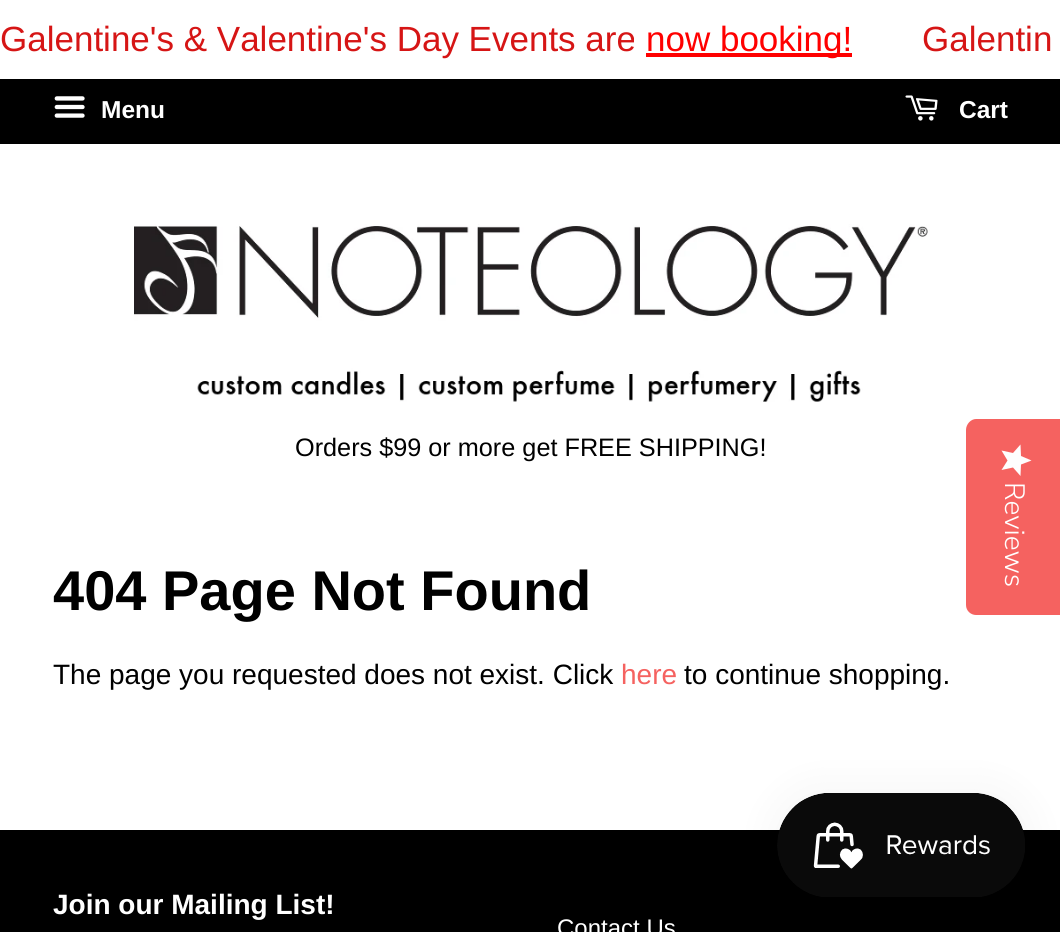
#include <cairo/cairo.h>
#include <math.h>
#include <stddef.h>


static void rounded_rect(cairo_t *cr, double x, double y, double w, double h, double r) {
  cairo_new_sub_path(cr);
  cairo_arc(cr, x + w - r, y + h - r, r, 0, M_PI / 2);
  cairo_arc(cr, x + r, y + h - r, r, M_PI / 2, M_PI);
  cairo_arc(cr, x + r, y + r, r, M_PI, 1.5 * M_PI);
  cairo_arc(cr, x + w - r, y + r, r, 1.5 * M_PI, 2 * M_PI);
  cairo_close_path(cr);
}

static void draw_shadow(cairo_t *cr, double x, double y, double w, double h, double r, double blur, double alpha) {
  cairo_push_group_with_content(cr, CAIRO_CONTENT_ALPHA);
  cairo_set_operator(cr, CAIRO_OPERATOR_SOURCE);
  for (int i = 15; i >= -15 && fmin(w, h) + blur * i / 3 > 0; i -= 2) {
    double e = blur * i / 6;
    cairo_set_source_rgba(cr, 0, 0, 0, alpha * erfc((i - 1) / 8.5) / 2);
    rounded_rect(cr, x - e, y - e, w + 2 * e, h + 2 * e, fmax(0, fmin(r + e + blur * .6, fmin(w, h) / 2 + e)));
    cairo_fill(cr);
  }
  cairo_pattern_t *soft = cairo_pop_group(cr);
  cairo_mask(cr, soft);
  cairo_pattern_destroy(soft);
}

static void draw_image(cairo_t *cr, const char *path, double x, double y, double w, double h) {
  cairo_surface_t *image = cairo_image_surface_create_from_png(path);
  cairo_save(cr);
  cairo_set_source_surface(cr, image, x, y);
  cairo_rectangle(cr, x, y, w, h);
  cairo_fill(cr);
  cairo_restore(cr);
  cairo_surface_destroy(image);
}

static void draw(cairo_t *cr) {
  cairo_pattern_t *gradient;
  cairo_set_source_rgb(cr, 1, 1, 1);
  cairo_paint(cr);
  cairo_set_source_rgb(cr, 1, 0, 0);
  cairo_rectangle(cr, 646, 53, 206, 4);
  cairo_fill(cr);
  cairo_set_source_rgb(cr, 0, 0, 0);
  cairo_rectangle(cr, 0, 79, 1060, 65);
  cairo_fill(cr);
  draw_image(cr, "images/1.png", 54, 96, 31, 22);
  draw_image(cr, "images/2.png", 905, 95, 33, 26);
  draw_image(cr, "images/3.png", 134, 224, 796, 178);
  cairo_set_source_rgb(cr, 245 / 255.0, 98 / 255.0, 96 / 255.0);
  cairo_new_path(cr);
  cairo_move_to(cr, 1060, 419);
  cairo_line_to(cr, 1060, 615);
  cairo_line_to(cr, 976, 615);
  cairo_curve_to(cr, 971, 615, 966, 611, 966, 605);
  cairo_line_to(cr, 966, 430);
  cairo_curve_to(cr, 966, 424, 971, 419, 976, 419);
  cairo_close_path(cr);
  cairo_fill(cr);
  gradient = cairo_pattern_create_linear(1032, 445, 1032, 476);
  cairo_pattern_add_color_stop_rgba(gradient, 1, 254 / 255.0, 254 / 255.0, 254 / 255.0, 1);
  cairo_pattern_add_color_stop_rgba(gradient, 1, 234 / 255.0, 234 / 255.0, 234 / 255.0, 1);
  cairo_set_source(cr, gradient);
  cairo_pattern_destroy(gradient);
  cairo_new_path(cr);
  cairo_move_to(cr, 1007.5, 460.5);
  cairo_line_to(cr, 1001.5, 470);
  cairo_line_to(cr, 1013, 467.5);
  cairo_line_to(cr, 1020.5, 476);
  cairo_line_to(cr, 1021, 464.5);
  cairo_line_to(cr, 1031.5, 460.5);
  cairo_line_to(cr, 1021, 456);
  cairo_line_to(cr, 1020.5, 444.5);
  cairo_line_to(cr, 1013, 453);
  cairo_line_to(cr, 1001.5, 450.5);
  cairo_close_path(cr);
  cairo_fill(cr);
  cairo_set_source_rgb(cr, 0, 0, 0);
  cairo_rectangle(cr, 0, 830, 1060, 102);
  cairo_fill(cr);
  cairo_set_source_rgb(cr, 0, 0, 0);
  draw_shadow(cr, 777, 793, 249, 105, 52.5, 22, 0.05);
  draw_image(cr, "images/4.png", 777, 793, 248, 104);
  cairo_select_font_face(cr, "Liberation Sans", CAIRO_FONT_SLANT_NORMAL, CAIRO_FONT_WEIGHT_NORMAL);
  cairo_set_font_size(cr, 35);
  cairo_set_source_rgb(cr, 214 / 255.0, 21 / 255.0, 21 / 255.0);
  cairo_move_to(cr, 0, 51);
  cairo_show_text(cr, "Galentine's & Valentine's Day Events are");
  cairo_set_source_rgb(cr, 1, 0, 0);
  cairo_move_to(cr, 646, 51);
  cairo_show_text(cr, "now booking!");
  cairo_set_source_rgb(cr, 214 / 255.0, 21 / 255.0, 21 / 255.0);
  cairo_move_to(cr, 922, 51);
  cairo_show_text(cr, "Galentin");
  cairo_select_font_face(cr, "Liberation Sans", CAIRO_FONT_SLANT_NORMAL, CAIRO_FONT_WEIGHT_BOLD);
  cairo_set_font_size(cr, 24.5);
  cairo_set_source_rgb(cr, 1, 1, 1);
  cairo_move_to(cr, 101, 118);
  cairo_show_text(cr, "Menu");
  cairo_move_to(cr, 959, 118);
  cairo_show_text(cr, "Cart");
  cairo_select_font_face(cr, "Liberation Sans", CAIRO_FONT_SLANT_NORMAL, CAIRO_FONT_WEIGHT_NORMAL);
  cairo_set_font_size(cr, 25.25);
  cairo_set_source_rgb(cr, 0, 0, 0);
  cairo_move_to(cr, 295, 456);
  cairo_show_text(cr, "Orders $99 or more get FREE SHIPPING!");
  cairo_select_font_face(cr, "Nunito Sans Light", CAIRO_FONT_SLANT_NORMAL, CAIRO_FONT_WEIGHT_NORMAL);
  cairo_set_font_size(cr, 28);
  cairo_set_source_rgb(cr, 1, 1, 1);
  cairo_save(cr);
  cairo_translate(cr, 1005, 482);
  cairo_rotate(cr, 90 * M_PI / 180);
  cairo_move_to(cr, 0, 0);
  cairo_show_text(cr, "Reviews");
  cairo_restore(cr);
  cairo_select_font_face(cr, "Liberation Sans", CAIRO_FONT_SLANT_NORMAL, CAIRO_FONT_WEIGHT_BOLD);
  cairo_set_font_size(cr, 56);
  cairo_set_source_rgb(cr, 0, 0, 0);
  cairo_move_to(cr, 53, 610);
  cairo_show_text(cr, "404 Page Not Found");
  cairo_select_font_face(cr, "Liberation Sans", CAIRO_FONT_SLANT_NORMAL, CAIRO_FONT_WEIGHT_NORMAL);
  cairo_set_font_size(cr, 28);
  cairo_move_to(cr, 53, 684);
  cairo_show_text(cr, "The page you requested does not exist. Click");
  cairo_set_source_rgb(cr, 245 / 255.0, 98 / 255.0, 96 / 255.0);
  cairo_move_to(cr, 621, 684);
  cairo_show_text(cr, "here");
  cairo_set_source_rgb(cr, 0, 0, 0);
  cairo_move_to(cr, 684, 684);
  cairo_show_text(cr, "to continue shopping.");
  cairo_select_font_face(cr, "Liberation Sans", CAIRO_FONT_SLANT_NORMAL, CAIRO_FONT_WEIGHT_BOLD);
  cairo_set_source_rgb(cr, 1, 1, 1);
  cairo_move_to(cr, 53, 914);
  cairo_show_text(cr, "Join our Mailing List!");
  cairo_select_font_face(cr, "Liberation Sans", CAIRO_FONT_SLANT_NORMAL, CAIRO_FONT_WEIGHT_NORMAL);
  cairo_set_font_size(cr, 24);
  cairo_move_to(cr, 557, 936);
  cairo_show_text(cr, "Contact Us");
}

int main(void) {
  cairo_surface_t *surface = cairo_image_surface_create(CAIRO_FORMAT_RGB24, 1060, 932);
  cairo_t *cr = cairo_create(surface);
  cairo_font_options_t *options = cairo_font_options_create();
  cairo_font_options_set_hint_metrics(options, CAIRO_HINT_METRICS_OFF);
  cairo_font_options_set_hint_style(options, CAIRO_HINT_STYLE_NONE);
  cairo_set_font_options(cr, options);
  cairo_set_miter_limit(cr, 4);
  draw(cr);
  cairo_surface_write_to_png(surface, "out.png");
  cairo_font_options_destroy(options);
  cairo_destroy(cr);
  cairo_surface_destroy(surface);
  return 0;
}
